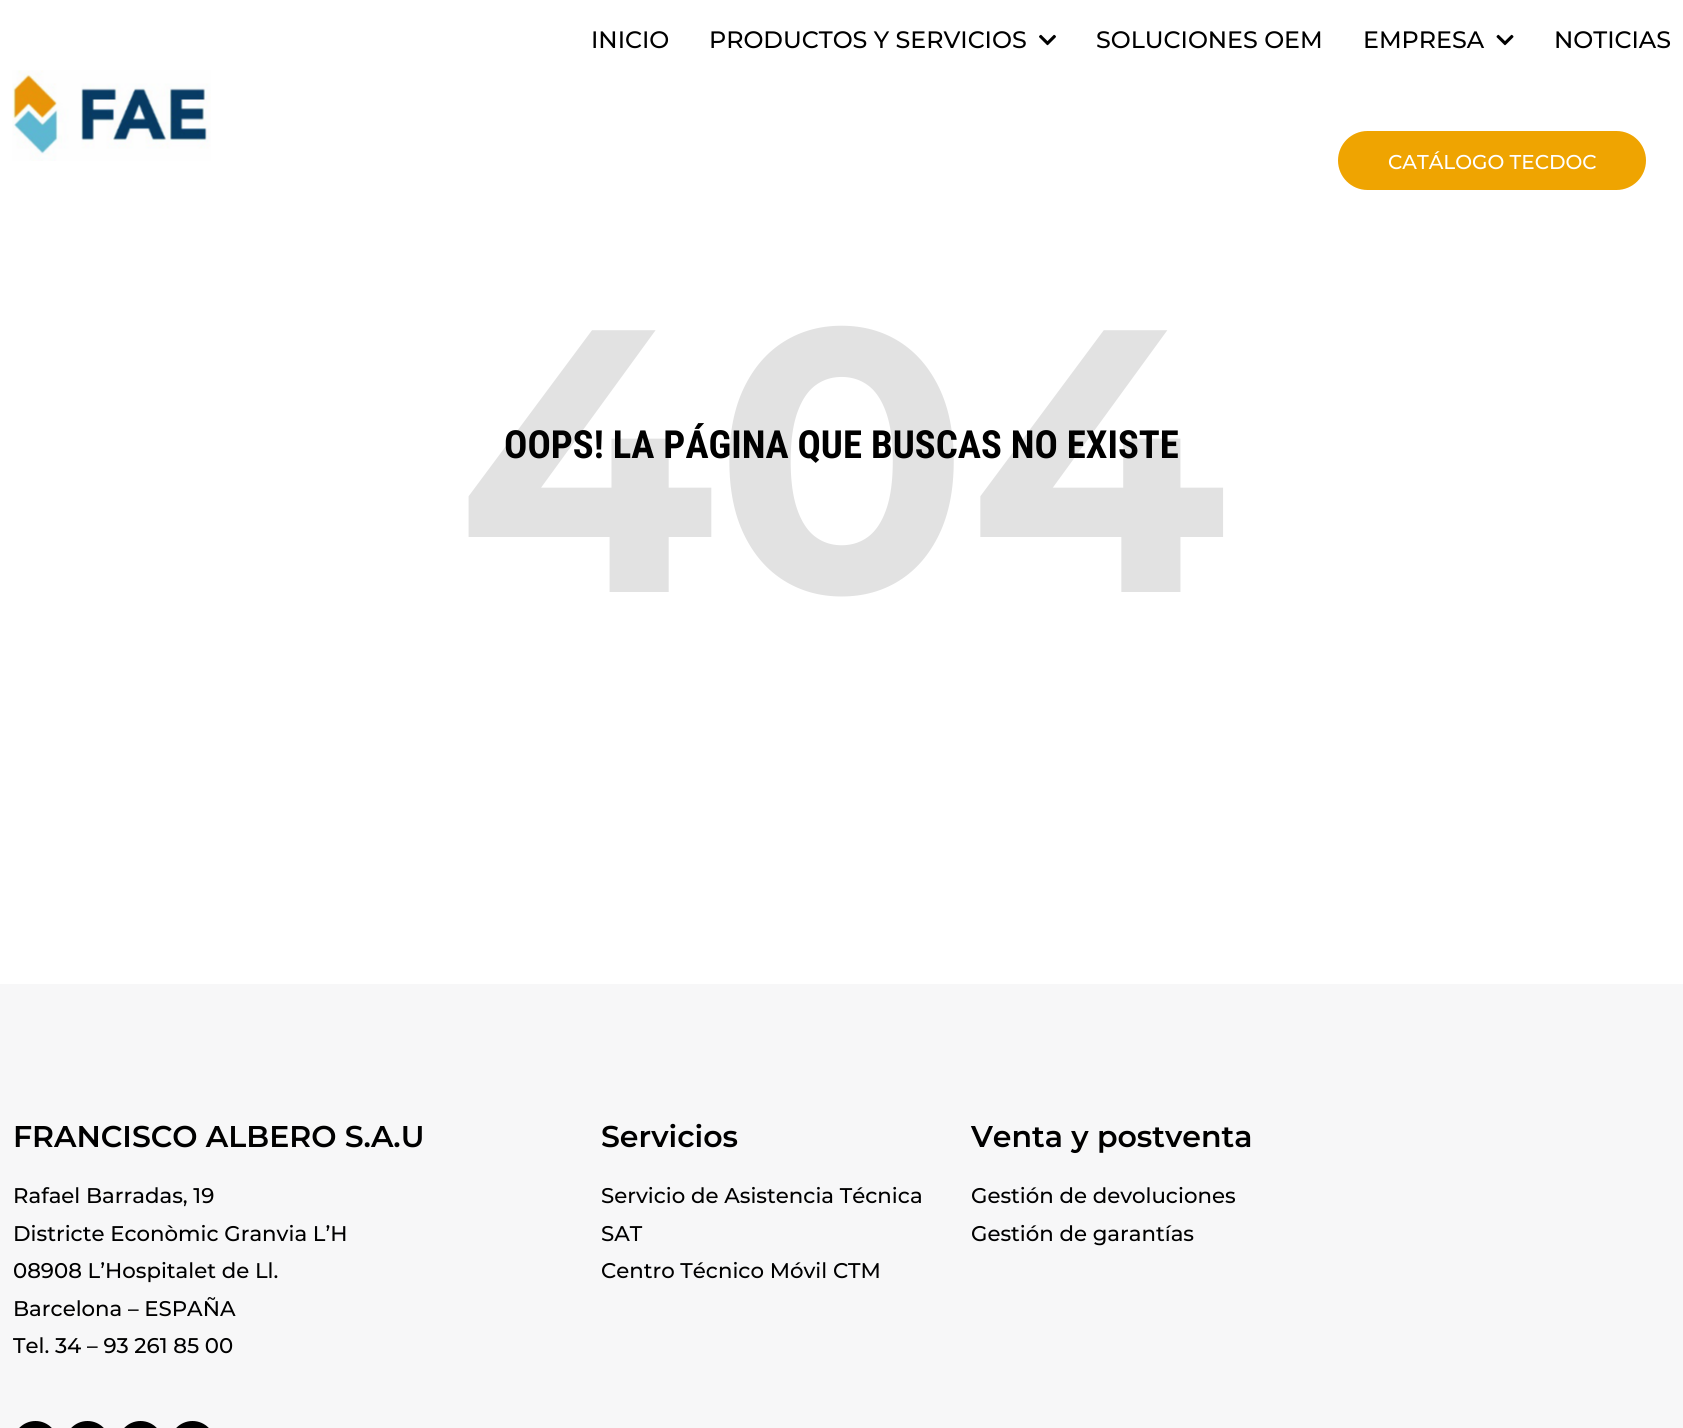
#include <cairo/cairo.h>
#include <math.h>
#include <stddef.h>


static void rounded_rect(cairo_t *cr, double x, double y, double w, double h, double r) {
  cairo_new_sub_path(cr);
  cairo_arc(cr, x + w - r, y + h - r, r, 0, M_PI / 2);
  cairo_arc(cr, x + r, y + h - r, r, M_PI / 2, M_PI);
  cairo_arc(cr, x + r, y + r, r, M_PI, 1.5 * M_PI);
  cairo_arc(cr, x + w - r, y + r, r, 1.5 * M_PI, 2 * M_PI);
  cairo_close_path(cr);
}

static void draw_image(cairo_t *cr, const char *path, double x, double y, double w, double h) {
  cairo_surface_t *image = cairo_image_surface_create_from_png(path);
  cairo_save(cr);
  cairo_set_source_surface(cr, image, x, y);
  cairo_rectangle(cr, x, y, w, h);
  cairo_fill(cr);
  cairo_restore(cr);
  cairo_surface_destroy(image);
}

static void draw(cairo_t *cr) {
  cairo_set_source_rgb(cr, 1, 1, 1);
  cairo_paint(cr);
  draw_image(cr, "images/1.png", 12, 70, 199, 91);
  draw_image(cr, "images/2.png", 1039, 34, 17, 12);
  draw_image(cr, "images/3.png", 1496, 34, 18, 12);
  cairo_set_source_rgb(cr, 239 / 255.0, 164 / 255.0, 1 / 255.0);
  rounded_rect(cr, 1338, 131, 308, 59, 29.5);
  cairo_fill(cr);
  cairo_set_source_rgb(cr, 247 / 255.0, 247 / 255.0, 248 / 255.0);
  cairo_rectangle(cr, 0, 984, 1683, 444);
  cairo_fill(cr);
  cairo_set_source_rgb(cr, 0, 0, 0);
  rounded_rect(cr, 13, 1421, 45, 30, 22.5);
  cairo_fill(cr);
  rounded_rect(cr, 65, 1421, 45, 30, 22.5);
  cairo_fill(cr);
  rounded_rect(cr, 118, 1421, 45, 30, 22.5);
  cairo_fill(cr);
  rounded_rect(cr, 170, 1421, 45, 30, 22.5);
  cairo_fill(cr);
  cairo_select_font_face(cr, "Montserrat Medium", CAIRO_FONT_SLANT_NORMAL, CAIRO_FONT_WEIGHT_NORMAL);
  cairo_set_font_size(cr, 23.75);
  cairo_move_to(cr, 591, 48);
  cairo_show_text(cr, "INICIO");
  cairo_move_to(cr, 709, 48);
  cairo_show_text(cr, "PRODUCTOS Y SERVICIOS");
  cairo_move_to(cr, 1096, 48);
  cairo_show_text(cr, "SOLUCIONES OEM");
  cairo_move_to(cr, 1363, 48);
  cairo_show_text(cr, "EMPRESA");
  cairo_move_to(cr, 1554, 48);
  cairo_show_text(cr, "NOTICIAS");
  cairo_set_font_size(cr, 20);
  cairo_set_source_rgb(cr, 1, 1, 1);
  cairo_move_to(cr, 1388, 169);
  cairo_show_text(cr, "CATÁLOGO TECDOC");
  cairo_select_font_face(cr, "Montserrat", CAIRO_FONT_SLANT_NORMAL, CAIRO_FONT_WEIGHT_BOLD);
  cairo_set_font_size(cr, 374);
  cairo_set_source_rgb(cr, 226 / 255.0, 226 / 255.0, 226 / 255.0);
  cairo_move_to(cr, 457, 592);
  cairo_show_text(cr, "404");
  cairo_select_font_face(cr, "Roboto Condensed", CAIRO_FONT_SLANT_NORMAL, CAIRO_FONT_WEIGHT_BOLD);
  cairo_set_font_size(cr, 38.75);
  cairo_set_source_rgb(cr, 0, 0, 0);
  cairo_move_to(cr, 504, 458);
  cairo_show_text(cr, "OOPS! LA PÁGINA QUE BUSCAS NO EXISTE");
  cairo_select_font_face(cr, "Montserrat SemiBold", CAIRO_FONT_SLANT_NORMAL, CAIRO_FONT_WEIGHT_NORMAL);
  cairo_set_font_size(cr, 30);
  cairo_move_to(cr, 13, 1147);
  cairo_show_text(cr, "FRANCISCO ALBERO S.A.U");
  cairo_select_font_face(cr, "Montserrat Medium", CAIRO_FONT_SLANT_NORMAL, CAIRO_FONT_WEIGHT_NORMAL);
  cairo_set_font_size(cr, 21.25);
  cairo_move_to(cr, 13, 1203);
  cairo_show_text(cr, "Rafael Barradas, 19");
  cairo_move_to(cr, 13, 1241);
  cairo_show_text(cr, "Districte Econòmic Granvia L’H");
  cairo_move_to(cr, 13, 1278);
  cairo_show_text(cr, "08908 L’Hospitalet de Ll.");
  cairo_move_to(cr, 13, 1316);
  cairo_show_text(cr, "Barcelona – ESPAÑA");
  cairo_move_to(cr, 13, 1353);
  cairo_show_text(cr, "Tel. 34 – 93 261 85 00");
  cairo_select_font_face(cr, "Montserrat SemiBold", CAIRO_FONT_SLANT_NORMAL, CAIRO_FONT_WEIGHT_NORMAL);
  cairo_set_font_size(cr, 30);
  cairo_move_to(cr, 601, 1147);
  cairo_show_text(cr, "Servicios");
  cairo_select_font_face(cr, "Montserrat Medium", CAIRO_FONT_SLANT_NORMAL, CAIRO_FONT_WEIGHT_NORMAL);
  cairo_set_font_size(cr, 21.25);
  cairo_move_to(cr, 601, 1203);
  cairo_show_text(cr, "Servicio de Asistencia Técnica");
  cairo_move_to(cr, 601, 1241);
  cairo_show_text(cr, "SAT");
  cairo_move_to(cr, 601, 1278);
  cairo_show_text(cr, "Centro Técnico Móvil CTM");
  cairo_select_font_face(cr, "Montserrat SemiBold", CAIRO_FONT_SLANT_NORMAL, CAIRO_FONT_WEIGHT_NORMAL);
  cairo_set_font_size(cr, 30);
  cairo_move_to(cr, 971, 1147);
  cairo_show_text(cr, "Venta y postventa");
  cairo_select_font_face(cr, "Montserrat Medium", CAIRO_FONT_SLANT_NORMAL, CAIRO_FONT_WEIGHT_NORMAL);
  cairo_set_font_size(cr, 21.25);
  cairo_move_to(cr, 971, 1203);
  cairo_show_text(cr, "Gestión de devoluciones");
  cairo_move_to(cr, 971, 1241);
  cairo_show_text(cr, "Gestión de garantías");
}

int main(void) {
  cairo_surface_t *surface = cairo_image_surface_create(CAIRO_FORMAT_RGB24, 1683, 1428);
  cairo_t *cr = cairo_create(surface);
  cairo_font_options_t *options = cairo_font_options_create();
  cairo_font_options_set_hint_metrics(options, CAIRO_HINT_METRICS_OFF);
  cairo_font_options_set_hint_style(options, CAIRO_HINT_STYLE_NONE);
  cairo_set_font_options(cr, options);
  cairo_set_miter_limit(cr, 4);
  draw(cr);
  cairo_surface_write_to_png(surface, "out.png");
  cairo_font_options_destroy(options);
  cairo_destroy(cr);
  cairo_surface_destroy(surface);
  return 0;
}
